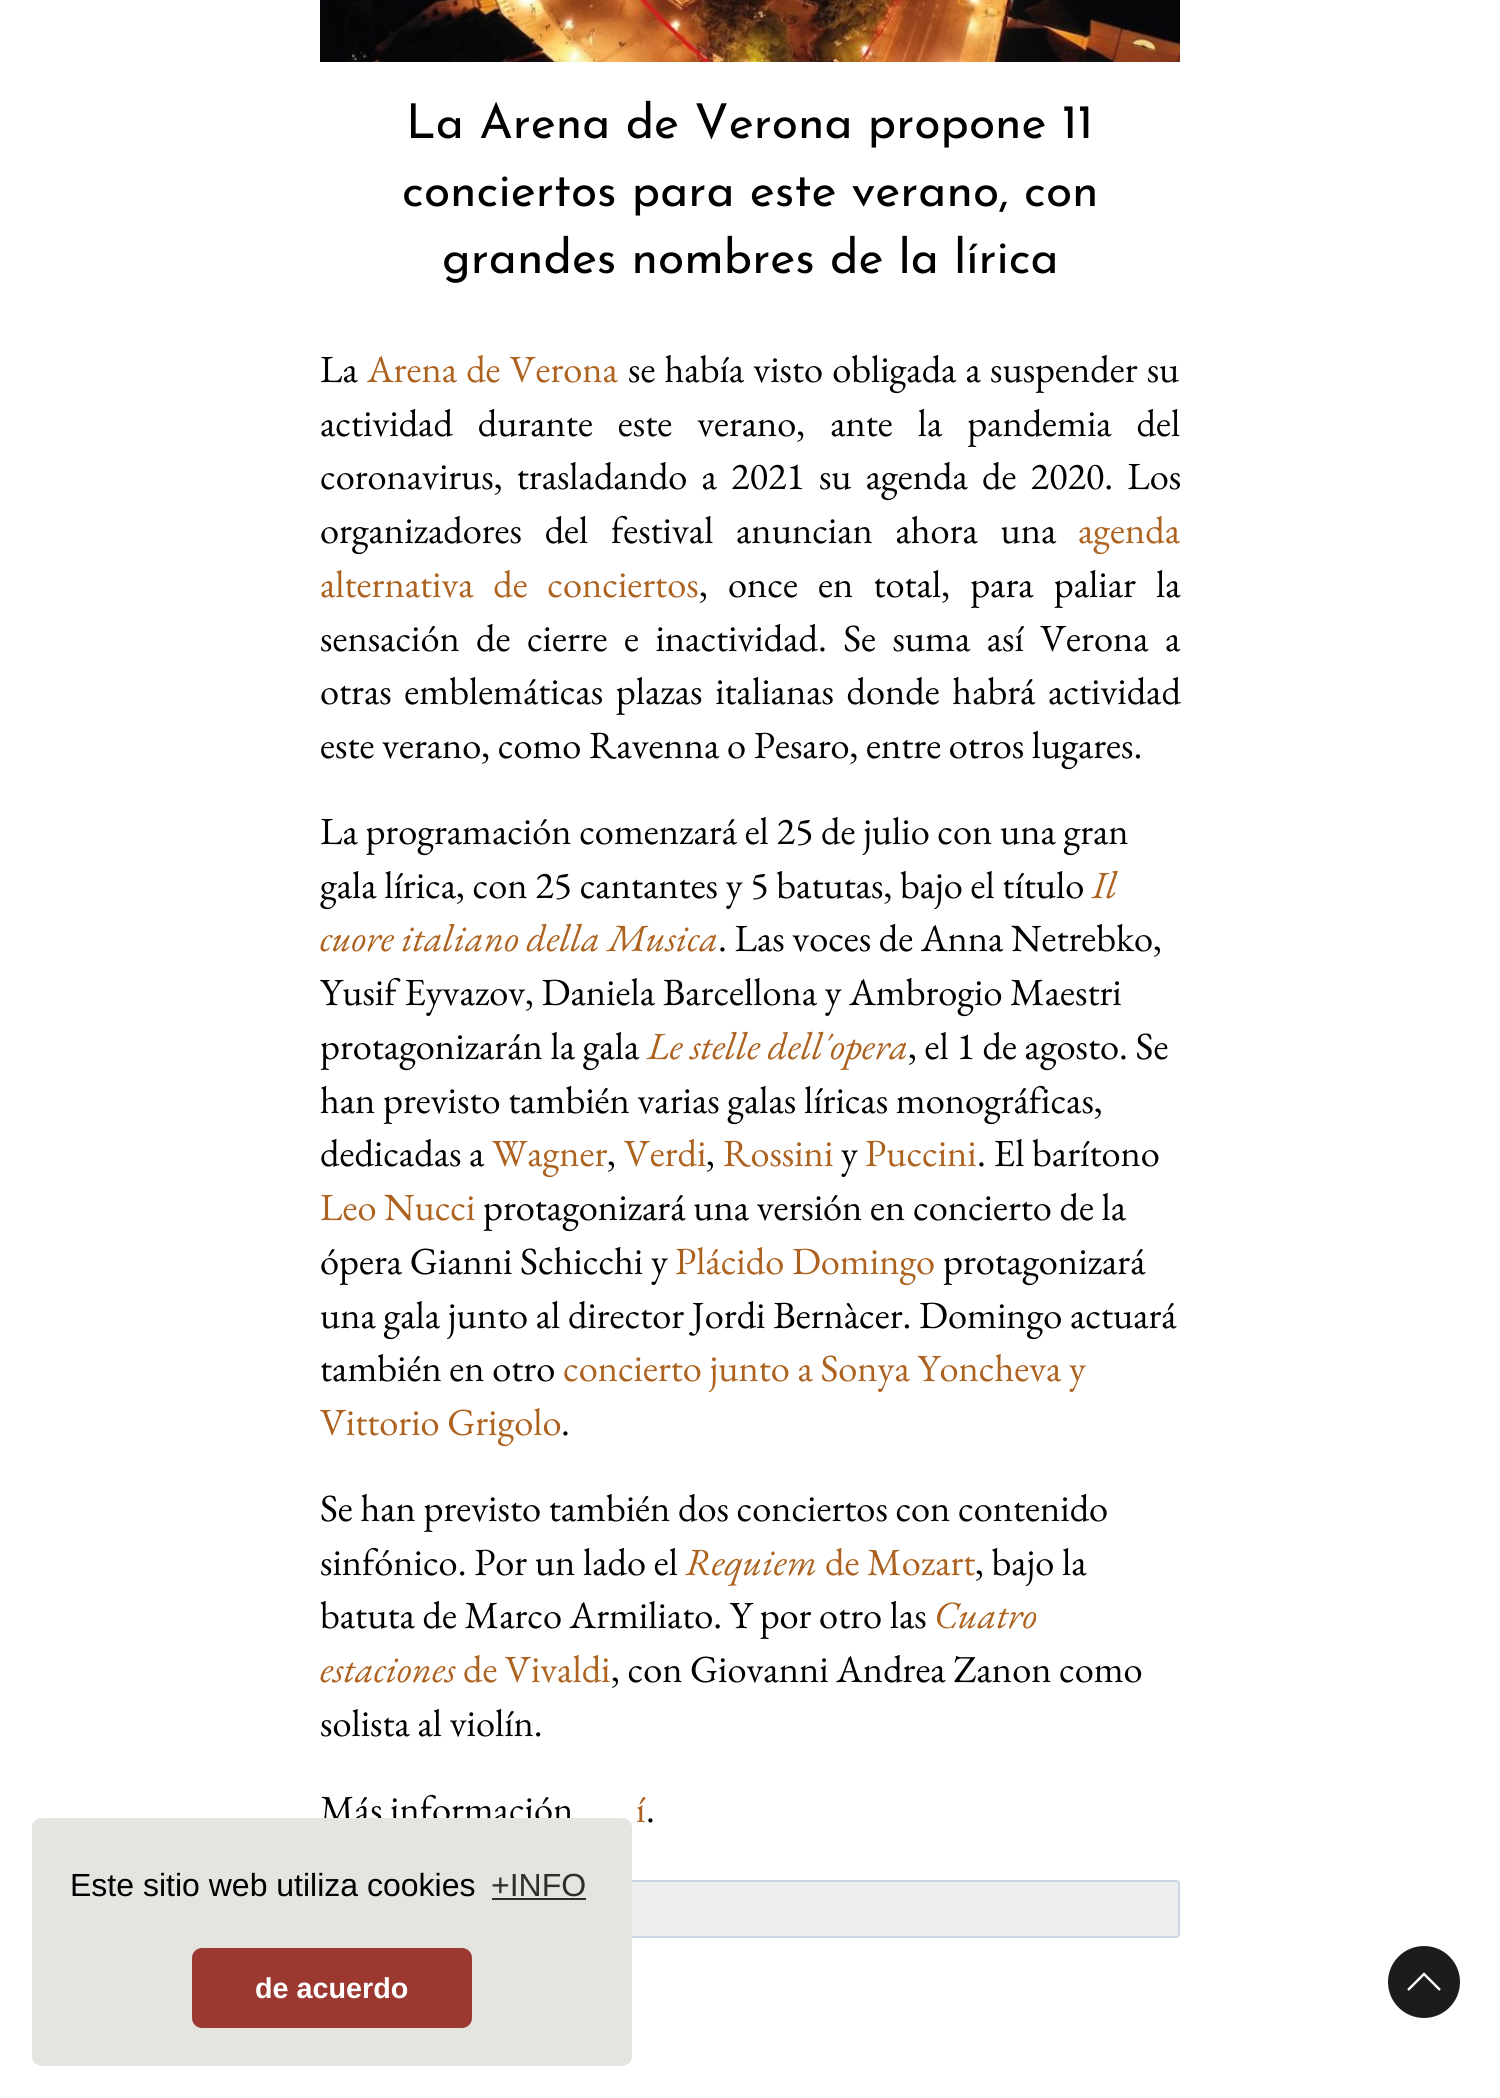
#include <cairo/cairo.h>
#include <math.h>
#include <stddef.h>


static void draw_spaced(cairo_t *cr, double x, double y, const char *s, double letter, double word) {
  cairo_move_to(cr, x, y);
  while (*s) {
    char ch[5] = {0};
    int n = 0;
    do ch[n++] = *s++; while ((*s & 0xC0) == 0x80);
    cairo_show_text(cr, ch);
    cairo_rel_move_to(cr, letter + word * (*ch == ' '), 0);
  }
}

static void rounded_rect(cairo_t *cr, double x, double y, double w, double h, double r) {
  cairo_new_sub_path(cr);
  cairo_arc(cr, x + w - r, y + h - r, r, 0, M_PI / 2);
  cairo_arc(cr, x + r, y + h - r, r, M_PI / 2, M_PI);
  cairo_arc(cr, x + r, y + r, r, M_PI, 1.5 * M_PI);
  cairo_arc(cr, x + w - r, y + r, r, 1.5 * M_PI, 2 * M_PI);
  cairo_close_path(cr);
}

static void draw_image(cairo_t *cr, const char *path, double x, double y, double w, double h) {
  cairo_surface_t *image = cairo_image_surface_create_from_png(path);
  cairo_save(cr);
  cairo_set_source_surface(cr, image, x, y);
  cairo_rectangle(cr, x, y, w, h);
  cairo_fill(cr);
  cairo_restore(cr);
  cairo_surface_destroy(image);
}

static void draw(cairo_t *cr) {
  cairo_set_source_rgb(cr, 1, 1, 1);
  cairo_paint(cr);
  draw_image(cr, "images/1.png", 320, 0, 860, 62);
  cairo_set_source_rgb(cr, 238 / 255.0, 238 / 255.0, 238 / 255.0);
  rounded_rect(cr, 321, 1881, 858, 56, 3);
  cairo_fill_preserve(cr);
  cairo_set_source_rgb(cr, 202 / 255.0, 212 / 255.0, 231 / 255.0);
  cairo_stroke(cr);
  cairo_set_source_rgb(cr, 28 / 255.0, 28 / 255.0, 28 / 255.0);
  cairo_arc(cr, 1424, 1982, 36, 0, 2 * M_PI);
  cairo_fill(cr);
  cairo_new_path(cr);
  cairo_move_to(cr, 1408, 1990);
  cairo_line_to(cr, 1424, 1974);
  cairo_line_to(cr, 1440, 1990);
  cairo_set_source_rgb(cr, 1, 1, 1);
  cairo_set_line_width(cr, 2.4);
  cairo_stroke(cr);
  cairo_select_font_face(cr, "Josefin Sans", CAIRO_FONT_SLANT_NORMAL, CAIRO_FONT_WEIGHT_NORMAL);
  cairo_set_font_size(cr, 48);
  cairo_set_source_rgb(cr, 0, 0, 0);
  cairo_move_to(cr, 406, 138);
  cairo_show_text(cr, "La Arena de Verona propone 11");
  cairo_move_to(cr, 402, 206);
  cairo_show_text(cr, "conciertos para este verano, con");
  cairo_move_to(cr, 442, 273);
  cairo_show_text(cr, "grandes nombres de la lírica");
  cairo_select_font_face(cr, "EB Garamond", CAIRO_FONT_SLANT_NORMAL, CAIRO_FONT_WEIGHT_NORMAL);
  cairo_set_font_size(cr, 38.4);
  cairo_move_to(cr, 320, 382);
  cairo_show_text(cr, "La");
  cairo_set_source_rgb(cr, 173 / 255.0, 98 / 255.0, 31 / 255.0);
  draw_spaced(cr, 367, 382, "Arena de Verona", 0, 1.5);
  cairo_set_source_rgb(cr, 0, 0, 0);
  draw_spaced(cr, 628, 382, "se había visto obligada a suspender su", 0, 1.5);
  draw_spaced(cr, 320, 436, "actividad durante este verano, ante la pandemia del", 0, 17.25);
  draw_spaced(cr, 320, 489, "coronavirus, trasladando a 2021 su agenda de 2020. Los", 0, 6.5);
  draw_spaced(cr, 320, 543, "organizadores del festival anuncian ahora una", 0, 15);
  cairo_set_source_rgb(cr, 173 / 255.0, 98 / 255.0, 31 / 255.0);
  cairo_move_to(cr, 1078, 543);
  cairo_show_text(cr, "agenda");
  draw_spaced(cr, 320, 597, "alternativa de conciertos", 0, 12);
  cairo_set_source_rgb(cr, 0, 0, 0);
  draw_spaced(cr, 699, 597, ", once en total, para paliar la", 0, 12.5);
  draw_spaced(cr, 320, 651, "sensación de cierre e inactividad. Se suma así Verona a", 0, 8.75);
  draw_spaced(cr, 320, 704, "otras emblemáticas plazas italianas donde habrá actividad", 0, 5);
  cairo_move_to(cr, 320, 758);
  cairo_show_text(cr, "este verano, como Ravenna o Pesaro, entre otros lugares.");
  cairo_move_to(cr, 320, 844);
  cairo_show_text(cr, "La programación comenzará el 25 de julio con una gran");
  cairo_move_to(cr, 320, 898);
  cairo_show_text(cr, "gala lírica, con 25 cantantes y 5 batutas, bajo el título");
  cairo_select_font_face(cr, "EB Garamond", CAIRO_FONT_SLANT_ITALIC, CAIRO_FONT_WEIGHT_NORMAL);
  cairo_set_source_rgb(cr, 173 / 255.0, 98 / 255.0, 31 / 255.0);
  cairo_move_to(cr, 1092, 898);
  cairo_show_text(cr, "Il");
  cairo_move_to(cr, 320, 951);
  cairo_show_text(cr, "cuore italiano della Musica");
  cairo_select_font_face(cr, "EB Garamond", CAIRO_FONT_SLANT_NORMAL, CAIRO_FONT_WEIGHT_NORMAL);
  cairo_set_source_rgb(cr, 0, 0, 0);
  cairo_move_to(cr, 718, 951);
  cairo_show_text(cr, ". Las voces de Anna Netrebko,");
  cairo_move_to(cr, 320, 1005);
  cairo_show_text(cr, "Yusif Eyvazov, Daniela Barcellona y Ambrogio Maestri");
  cairo_move_to(cr, 320, 1059);
  cairo_show_text(cr, "protagonizarán la gala");
  cairo_select_font_face(cr, "EB Garamond", CAIRO_FONT_SLANT_ITALIC, CAIRO_FONT_WEIGHT_NORMAL);
  cairo_set_source_rgb(cr, 173 / 255.0, 98 / 255.0, 31 / 255.0);
  cairo_move_to(cr, 647, 1059);
  cairo_show_text(cr, "Le stelle dell´opera");
  cairo_select_font_face(cr, "EB Garamond", CAIRO_FONT_SLANT_NORMAL, CAIRO_FONT_WEIGHT_NORMAL);
  cairo_set_source_rgb(cr, 0, 0, 0);
  cairo_move_to(cr, 908, 1059);
  cairo_show_text(cr, ", el 1 de agosto. Se");
  cairo_move_to(cr, 320, 1113);
  cairo_show_text(cr, "han previsto también varias galas líricas monográficas,");
  cairo_move_to(cr, 320, 1166);
  cairo_show_text(cr, "dedicadas a");
  cairo_set_source_rgb(cr, 173 / 255.0, 98 / 255.0, 31 / 255.0);
  cairo_move_to(cr, 492, 1166);
  cairo_show_text(cr, "Wagner");
  cairo_set_source_rgb(cr, 0, 0, 0);
  cairo_move_to(cr, 607, 1166);
  cairo_show_text(cr, ",");
  cairo_set_source_rgb(cr, 173 / 255.0, 98 / 255.0, 31 / 255.0);
  cairo_move_to(cr, 624, 1166);
  cairo_show_text(cr, "Verdi");
  cairo_set_source_rgb(cr, 0, 0, 0);
  cairo_move_to(cr, 706, 1166);
  cairo_show_text(cr, ",");
  cairo_set_source_rgb(cr, 173 / 255.0, 98 / 255.0, 31 / 255.0);
  cairo_move_to(cr, 723, 1166);
  cairo_show_text(cr, "Rossini");
  cairo_set_source_rgb(cr, 0, 0, 0);
  cairo_move_to(cr, 841, 1166);
  cairo_show_text(cr, "y");
  cairo_set_source_rgb(cr, 173 / 255.0, 98 / 255.0, 31 / 255.0);
  cairo_move_to(cr, 865, 1166);
  cairo_show_text(cr, "Puccini");
  cairo_set_source_rgb(cr, 0, 0, 0);
  cairo_move_to(cr, 977, 1166);
  cairo_show_text(cr, ". El barítono");
  cairo_set_source_rgb(cr, 173 / 255.0, 98 / 255.0, 31 / 255.0);
  cairo_move_to(cr, 320, 1220);
  cairo_show_text(cr, "Leo Nucci");
  cairo_set_source_rgb(cr, 0, 0, 0);
  cairo_move_to(cr, 483, 1220);
  cairo_show_text(cr, "protagonizará una versión en concierto de la");
  cairo_move_to(cr, 320, 1274);
  cairo_show_text(cr, "ópera Gianni Schicchi y");
  cairo_set_source_rgb(cr, 173 / 255.0, 98 / 255.0, 31 / 255.0);
  cairo_move_to(cr, 675, 1274);
  cairo_show_text(cr, "Plácido Domingo");
  cairo_set_source_rgb(cr, 0, 0, 0);
  cairo_move_to(cr, 943, 1274);
  cairo_show_text(cr, "protagonizará");
  cairo_move_to(cr, 320, 1328);
  cairo_show_text(cr, "una gala junto al director Jordi Bernàcer. Domingo actuará");
  cairo_move_to(cr, 320, 1381);
  cairo_show_text(cr, "también en otro");
  cairo_set_source_rgb(cr, 173 / 255.0, 98 / 255.0, 31 / 255.0);
  cairo_move_to(cr, 563, 1381);
  cairo_show_text(cr, "concierto junto a Sonya Yoncheva y");
  cairo_move_to(cr, 320, 1435);
  cairo_show_text(cr, "Vittorio Grigolo");
  cairo_set_source_rgb(cr, 0, 0, 0);
  cairo_move_to(cr, 561, 1435);
  cairo_show_text(cr, ".");
  cairo_move_to(cr, 320, 1521);
  cairo_show_text(cr, "Se han previsto también dos conciertos con contenido");
  cairo_move_to(cr, 320, 1575);
  cairo_show_text(cr, "sinfónico. Por un lado el");
  cairo_select_font_face(cr, "EB Garamond", CAIRO_FONT_SLANT_ITALIC, CAIRO_FONT_WEIGHT_NORMAL);
  cairo_set_source_rgb(cr, 173 / 255.0, 98 / 255.0, 31 / 255.0);
  cairo_move_to(cr, 685, 1575);
  cairo_show_text(cr, "Requiem");
  cairo_select_font_face(cr, "EB Garamond", CAIRO_FONT_SLANT_NORMAL, CAIRO_FONT_WEIGHT_NORMAL);
  cairo_move_to(cr, 825, 1575);
  cairo_show_text(cr, "de Mozart");
  cairo_set_source_rgb(cr, 0, 0, 0);
  cairo_move_to(cr, 975, 1575);
  cairo_show_text(cr, ", bajo la");
  cairo_move_to(cr, 320, 1628);
  cairo_show_text(cr, "batuta de Marco Armiliato. Y por otro las");
  cairo_select_font_face(cr, "EB Garamond", CAIRO_FONT_SLANT_ITALIC, CAIRO_FONT_WEIGHT_NORMAL);
  cairo_set_source_rgb(cr, 173 / 255.0, 98 / 255.0, 31 / 255.0);
  cairo_move_to(cr, 934, 1628);
  cairo_show_text(cr, "Cuatro");
  cairo_move_to(cr, 320, 1682);
  cairo_show_text(cr, "estaciones");
  cairo_select_font_face(cr, "EB Garamond", CAIRO_FONT_SLANT_NORMAL, CAIRO_FONT_WEIGHT_NORMAL);
  cairo_move_to(cr, 463, 1682);
  cairo_show_text(cr, "de Vivaldi");
  cairo_set_source_rgb(cr, 0, 0, 0);
  cairo_move_to(cr, 611, 1682);
  cairo_show_text(cr, ", con Giovanni Andrea Zanon como");
  cairo_move_to(cr, 320, 1736);
  cairo_show_text(cr, "solista al violín.");
  cairo_move_to(cr, 320, 1822);
  cairo_show_text(cr, "Más información");
  cairo_set_source_rgb(cr, 173 / 255.0, 98 / 255.0, 31 / 255.0);
  cairo_move_to(cr, 636, 1822);
  cairo_show_text(cr, "í");
  cairo_set_source_rgb(cr, 0, 0, 0);
  cairo_move_to(cr, 646, 1822);
  cairo_show_text(cr, ".");
  cairo_set_source_rgb(cr, 228 / 255.0, 229 / 255.0, 225 / 255.0);
  rounded_rect(cr, 32, 1818, 600, 248, 10);
  cairo_fill(cr);
  cairo_select_font_face(cr, "Liberation Sans", CAIRO_FONT_SLANT_NORMAL, CAIRO_FONT_WEIGHT_NORMAL);
  cairo_set_font_size(cr, 32);
  cairo_set_source_rgb(cr, 0, 0, 0);
  cairo_move_to(cr, 70, 1896);
  cairo_show_text(cr, "Este sitio web utiliza cookies");
  cairo_set_source_rgb(cr, 46 / 255.0, 46 / 255.0, 45 / 255.0);
  cairo_move_to(cr, 491, 1896);
  cairo_show_text(cr, "+INFO");
  cairo_rectangle(cr, 492, 1898, 94, 2);
  cairo_fill(cr);
  cairo_set_source_rgb(cr, 155 / 255.0, 57 / 255.0, 49 / 255.0);
  rounded_rect(cr, 192, 1948, 280, 80, 10);
  cairo_fill(cr);
  cairo_select_font_face(cr, "Liberation Sans", CAIRO_FONT_SLANT_NORMAL, CAIRO_FONT_WEIGHT_BOLD);
  cairo_set_font_size(cr, 28.75);
  cairo_set_source_rgb(cr, 1, 1, 1);
  cairo_move_to(cr, 255, 1998);
  cairo_show_text(cr, "de acuerdo");
}

int main(void) {
  cairo_surface_t *surface = cairo_image_surface_create(CAIRO_FORMAT_RGB24, 1500, 2098);
  cairo_t *cr = cairo_create(surface);
  cairo_font_options_t *options = cairo_font_options_create();
  cairo_font_options_set_hint_metrics(options, CAIRO_HINT_METRICS_OFF);
  cairo_font_options_set_hint_style(options, CAIRO_HINT_STYLE_NONE);
  cairo_set_font_options(cr, options);
  cairo_set_miter_limit(cr, 4);
  draw(cr);
  cairo_surface_write_to_png(surface, "out.png");
  cairo_font_options_destroy(options);
  cairo_destroy(cr);
  cairo_surface_destroy(surface);
  return 0;
}
